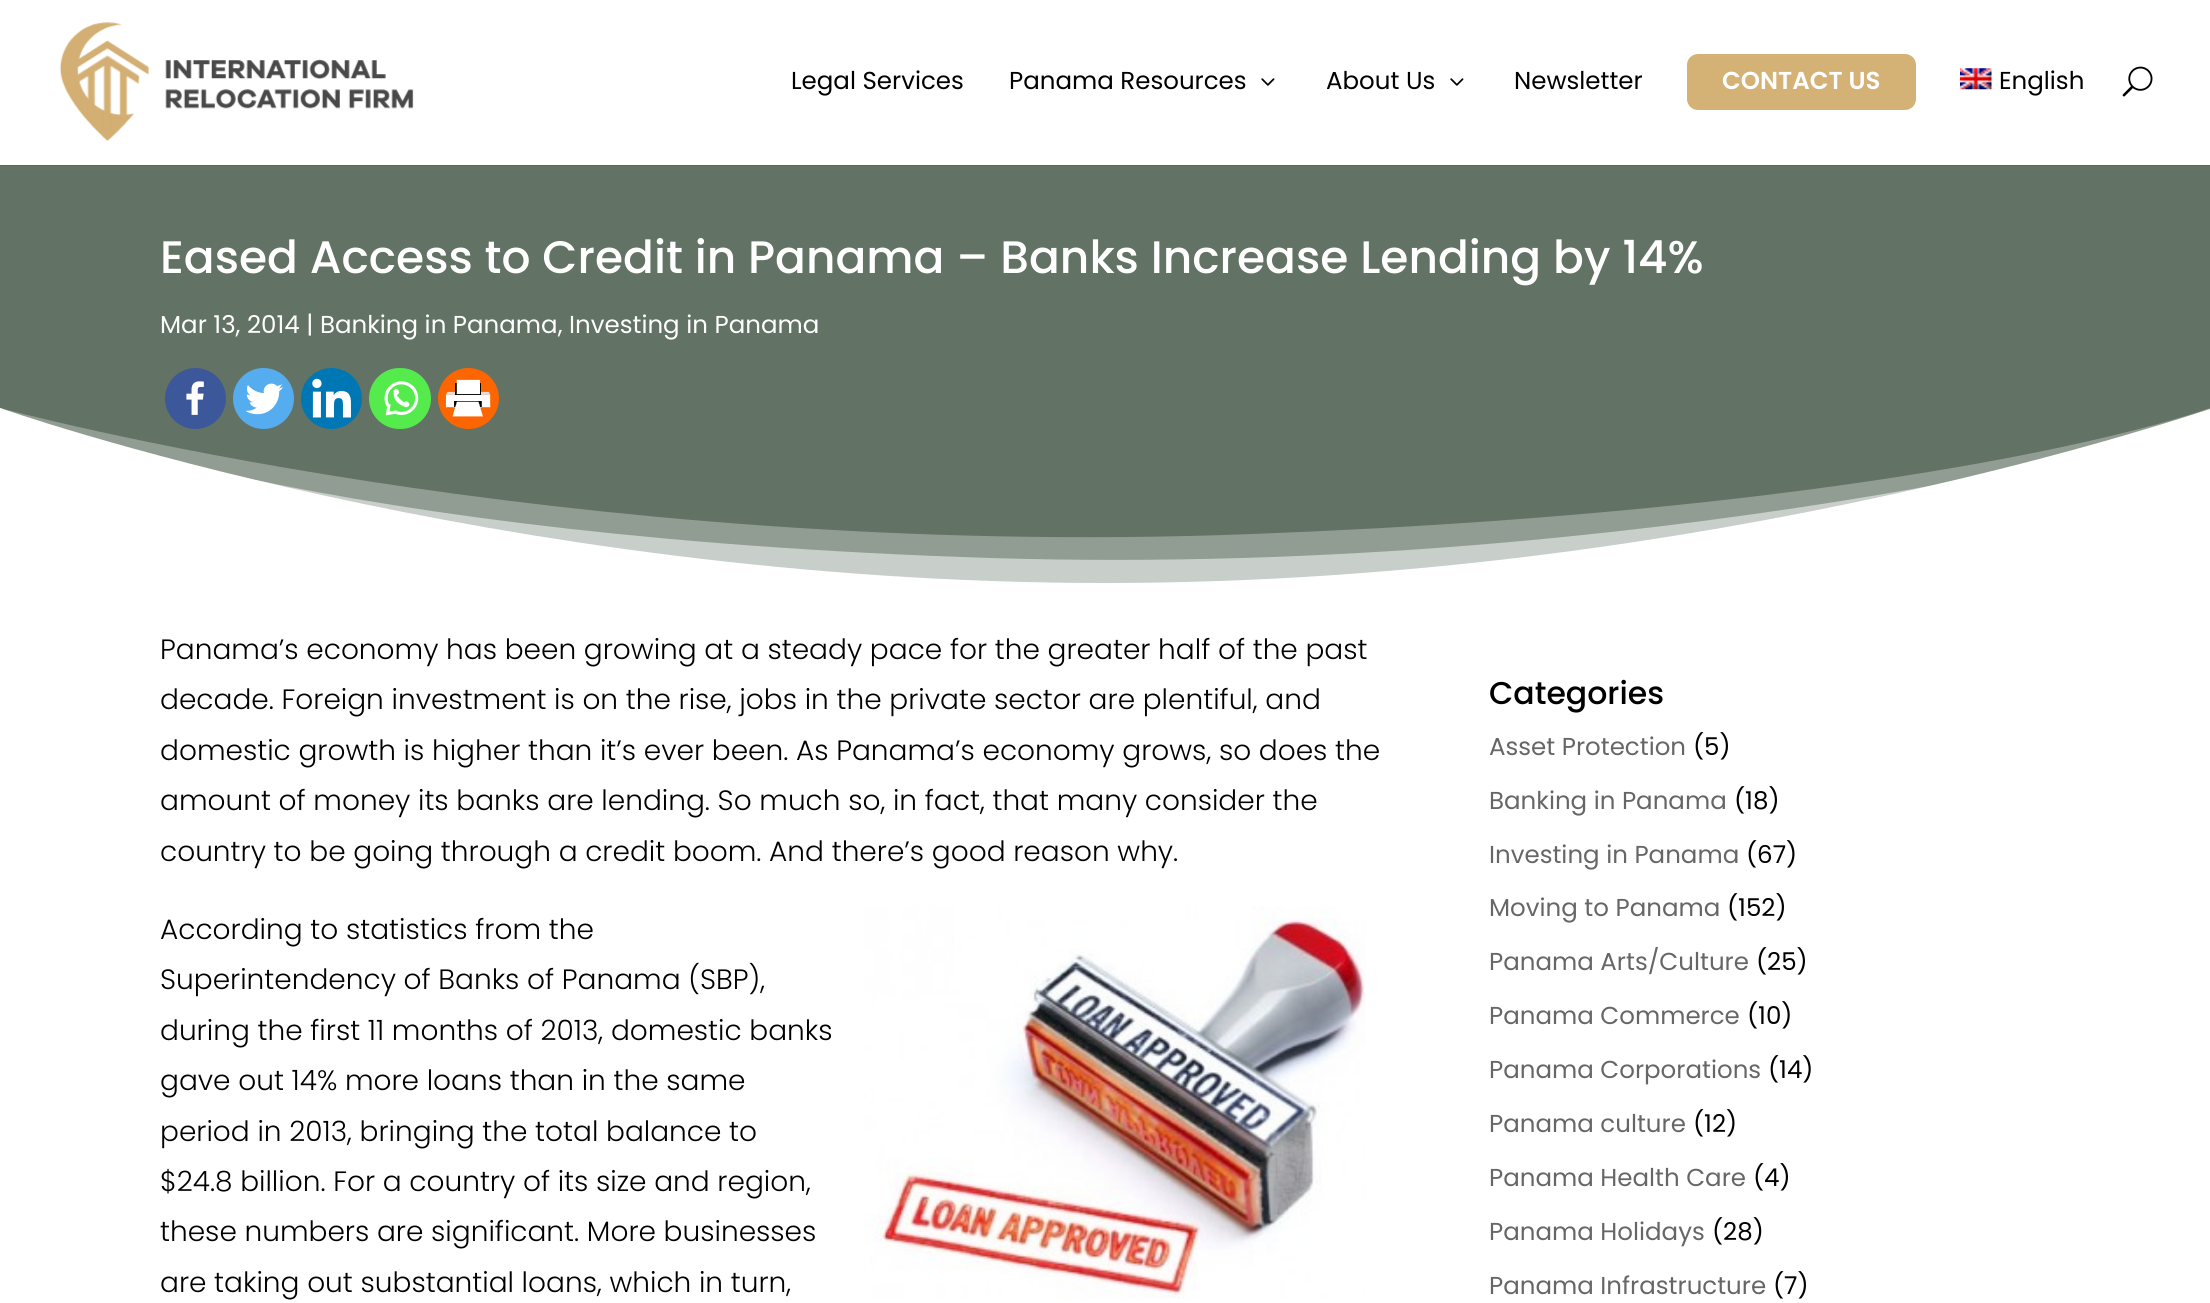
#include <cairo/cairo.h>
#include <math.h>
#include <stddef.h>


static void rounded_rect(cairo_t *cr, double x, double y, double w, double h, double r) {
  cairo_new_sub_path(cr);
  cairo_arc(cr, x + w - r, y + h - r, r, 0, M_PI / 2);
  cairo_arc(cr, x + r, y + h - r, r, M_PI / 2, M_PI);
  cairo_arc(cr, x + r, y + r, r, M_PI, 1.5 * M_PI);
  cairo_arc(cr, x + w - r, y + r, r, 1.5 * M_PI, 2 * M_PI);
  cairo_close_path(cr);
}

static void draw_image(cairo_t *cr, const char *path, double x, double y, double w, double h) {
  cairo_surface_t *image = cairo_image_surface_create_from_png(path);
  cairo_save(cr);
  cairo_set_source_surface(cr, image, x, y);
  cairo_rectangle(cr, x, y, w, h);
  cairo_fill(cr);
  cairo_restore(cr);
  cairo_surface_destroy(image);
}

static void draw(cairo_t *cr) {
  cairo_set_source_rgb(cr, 1, 1, 1);
  cairo_paint(cr);
  cairo_set_source_rgb(cr, 88 / 255.0, 103 / 255.0, 90 / 255.0);
  cairo_rectangle(cr, 0, 165, 2210, 1);
  cairo_fill(cr);
  draw_image(cr, "images/1.png", 59, 22, 355, 120);
  draw_image(cr, "images/2.png", 1261, 78, 14, 8);
  draw_image(cr, "images/2.png", 1450, 78, 14, 8);
  cairo_set_source_rgb(cr, 212 / 255.0, 177 / 255.0, 117 / 255.0);
  rounded_rect(cr, 1687, 54, 229, 56, 11);
  cairo_fill(cr);
  draw_image(cr, "images/3.png", 1960, 68, 32, 22);
  draw_image(cr, "images/4.png", 2122, 66, 31, 31);
  cairo_set_source_rgb(cr, 98 / 255.0, 114 / 255.0, 100 / 255.0);
  cairo_rectangle(cr, 0, 166, 2210, 372);
  cairo_fill(cr);
  cairo_set_source_rgb(cr, 145 / 255.0, 156 / 255.0, 147 / 255.0);
  cairo_new_path(cr);
  cairo_move_to(cr, 1252, 534);
  cairo_curve_to(cr, 562, 561, 0, 408, 0, 408);
  cairo_line_to(cr, 0, 583);
  cairo_line_to(cr, 2210, 583);
  cairo_line_to(cr, 2210, 408);
  cairo_curve_to(cr, 2210, 408, 1943, 508, 1252, 534);
  cairo_close_path(cr);
  cairo_fill(cr);
  cairo_set_source_rgba(cr, 1, 1, 1, 0.5);
  cairo_new_path(cr);
  cairo_move_to(cr, 961, 557);
  cairo_curve_to(cr, 1646, 583, 2210, 425, 2210, 425);
  cairo_line_to(cr, 2210, 583);
  cairo_line_to(cr, 0, 583);
  cairo_line_to(cr, 0, 408);
  cairo_curve_to(cr, 0, 408, 275, 532, 961, 557);
  cairo_close_path(cr);
  cairo_fill(cr);
  cairo_save(cr);
  cairo_rectangle(cr, 0, 408, 2210, 175);
  cairo_clip(cr);
  cairo_set_source_rgb(cr, 1, 1, 1);
  cairo_new_path(cr);
  cairo_move_to(cr, 1105, 583);
  cairo_curve_to(cr, 1715, 583, 2210, 408, 2210, 409);
  cairo_line_to(cr, 2210, 584);
  cairo_line_to(cr, 0, 584);
  cairo_line_to(cr, 0, 408);
  cairo_curve_to(cr, 0, 408, 495, 583, 1105, 583);
  cairo_close_path(cr);
  cairo_fill(cr);
  cairo_restore(cr);
  cairo_set_source_rgb(cr, 60 / 255.0, 88 / 255.0, 154 / 255.0);
  cairo_arc(cr, 195.5, 398.5, 30.5, 0, 2 * M_PI);
  cairo_fill(cr);
  draw_image(cr, "images/5.png", 186, 381, 18, 34);
  cairo_set_source_rgb(cr, 85 / 255.0, 172 / 255.0, 238 / 255.0);
  cairo_arc(cr, 263.5, 398.5, 30.5, 0, 2 * M_PI);
  cairo_fill(cr);
  draw_image(cr, "images/6.png", 245, 383, 38, 32);
  cairo_set_source_rgb(cr, 0, 119 / 255.0, 181 / 255.0);
  cairo_arc(cr, 331.5, 398.5, 30.5, 0, 2 * M_PI);
  cairo_fill(cr);
  draw_image(cr, "images/7.png", 312, 378, 39, 40);
  cairo_set_source_rgb(cr, 85 / 255.0, 235 / 255.0, 76 / 255.0);
  rounded_rect(cr, 369, 368, 62, 61, 30.5);
  cairo_fill(cr);
  draw_image(cr, "images/8.png", 384, 381, 35, 35);
  cairo_set_source_rgb(cr, 253 / 255.0, 101 / 255.0, 0);
  cairo_arc(cr, 468.5, 398.5, 30.5, 0, 2 * M_PI);
  cairo_fill(cr);
  draw_image(cr, "images/9.png", 445, 379, 46, 38);
  draw_image(cr, "images/10.png", 864, 906, 502, 393);
  cairo_select_font_face(cr, "Poppins", CAIRO_FONT_SLANT_NORMAL, CAIRO_FONT_WEIGHT_NORMAL);
  cairo_set_font_size(cr, 24.5);
  cairo_set_source_rgb(cr, 0, 0, 0);
  cairo_move_to(cr, 791, 89);
  cairo_show_text(cr, "Legal Services");
  cairo_move_to(cr, 1009, 89);
  cairo_show_text(cr, "Panama Resources");
  cairo_move_to(cr, 1326, 89);
  cairo_show_text(cr, "About Us");
  cairo_move_to(cr, 1514, 89);
  cairo_show_text(cr, "Newsletter");
  cairo_select_font_face(cr, "Poppins SemiBold", CAIRO_FONT_SLANT_NORMAL, CAIRO_FONT_WEIGHT_NORMAL);
  cairo_set_source_rgb(cr, 1, 1, 1);
  cairo_move_to(cr, 1722, 89);
  cairo_show_text(cr, "CONTACT US");
  cairo_select_font_face(cr, "Poppins", CAIRO_FONT_SLANT_NORMAL, CAIRO_FONT_WEIGHT_NORMAL);
  cairo_set_source_rgb(cr, 0, 0, 0);
  cairo_move_to(cr, 1999, 89);
  cairo_show_text(cr, "English");
  cairo_select_font_face(cr, "Poppins Medium", CAIRO_FONT_SLANT_NORMAL, CAIRO_FONT_WEIGHT_NORMAL);
  cairo_set_font_size(cr, 45.5);
  cairo_set_source_rgb(cr, 1, 1, 1);
  cairo_move_to(cr, 160, 273);
  cairo_show_text(cr, "Eased Access to Credit in Panama – Banks Increase Lending by 14%");
  cairo_select_font_face(cr, "Poppins", CAIRO_FONT_SLANT_NORMAL, CAIRO_FONT_WEIGHT_NORMAL);
  cairo_set_font_size(cr, 24.5);
  cairo_move_to(cr, 160, 333);
  cairo_show_text(cr, "Mar 13, 2014 | Banking in Panama, Investing in Panama");
  cairo_select_font_face(cr, "Poppins Light", CAIRO_FONT_SLANT_NORMAL, CAIRO_FONT_WEIGHT_NORMAL);
  cairo_set_font_size(cr, 28);
  cairo_set_source_rgb(cr, 0, 0, 0);
  cairo_move_to(cr, 160, 659);
  cairo_show_text(cr, "Panama’s economy has been growing at a steady pace for the greater half of the past");
  cairo_move_to(cr, 160, 709);
  cairo_show_text(cr, "decade. Foreign investment is on the rise, jobs in the private sector are plentiful, and");
  cairo_move_to(cr, 160, 760);
  cairo_show_text(cr, "domestic growth is higher than it’s ever been. As Panama’s economy grows, so does the");
  cairo_move_to(cr, 160, 810);
  cairo_show_text(cr, "amount of money its banks are lending. So much so, in fact, that many consider the");
  cairo_move_to(cr, 160, 861);
  cairo_show_text(cr, "country to be going through a credit boom. And there’s good reason why.");
  cairo_move_to(cr, 160, 939);
  cairo_show_text(cr, "According to statistics from the");
  cairo_move_to(cr, 160, 989);
  cairo_show_text(cr, "Superintendency of Banks of Panama (SBP),");
  cairo_move_to(cr, 160, 1040);
  cairo_show_text(cr, "during the first 11 months of 2013, domestic banks");
  cairo_move_to(cr, 160, 1090);
  cairo_show_text(cr, "gave out 14% more loans than in the same");
  cairo_move_to(cr, 160, 1141);
  cairo_show_text(cr, "period in 2013, bringing the total balance to");
  cairo_move_to(cr, 160, 1191);
  cairo_show_text(cr, "$24.8 billion. For a country of its size and region,");
  cairo_move_to(cr, 160, 1241);
  cairo_show_text(cr, "these numbers are significant. More businesses");
  cairo_move_to(cr, 160, 1292);
  cairo_show_text(cr, "are taking out substantial loans, which in turn,");
  cairo_select_font_face(cr, "Poppins Medium", CAIRO_FONT_SLANT_NORMAL, CAIRO_FONT_WEIGHT_NORMAL);
  cairo_set_font_size(cr, 31.5);
  cairo_move_to(cr, 1489, 704);
  cairo_show_text(cr, "Categories");
  cairo_select_font_face(cr, "Poppins", CAIRO_FONT_SLANT_NORMAL, CAIRO_FONT_WEIGHT_NORMAL);
  cairo_set_font_size(cr, 24.5);
  cairo_set_source_rgb(cr, 102 / 255.0, 102 / 255.0, 102 / 255.0);
  cairo_move_to(cr, 1489, 755);
  cairo_show_text(cr, "Asset Protection");
  cairo_set_source_rgb(cr, 0, 0, 0);
  cairo_move_to(cr, 1693, 755);
  cairo_show_text(cr, "(5)");
  cairo_set_source_rgb(cr, 102 / 255.0, 102 / 255.0, 102 / 255.0);
  cairo_move_to(cr, 1489, 809);
  cairo_show_text(cr, "Banking in Panama");
  cairo_set_source_rgb(cr, 0, 0, 0);
  cairo_move_to(cr, 1734, 809);
  cairo_show_text(cr, "(18)");
  cairo_set_source_rgb(cr, 102 / 255.0, 102 / 255.0, 102 / 255.0);
  cairo_move_to(cr, 1489, 863);
  cairo_show_text(cr, "Investing in Panama");
  cairo_set_source_rgb(cr, 0, 0, 0);
  cairo_move_to(cr, 1746, 863);
  cairo_show_text(cr, "(67)");
  cairo_set_source_rgb(cr, 102 / 255.0, 102 / 255.0, 102 / 255.0);
  cairo_move_to(cr, 1489, 916);
  cairo_show_text(cr, "Moving to Panama");
  cairo_set_source_rgb(cr, 0, 0, 0);
  cairo_move_to(cr, 1727, 916);
  cairo_show_text(cr, "(152)");
  cairo_set_source_rgb(cr, 102 / 255.0, 102 / 255.0, 102 / 255.0);
  cairo_move_to(cr, 1489, 970);
  cairo_show_text(cr, "Panama Arts/Culture");
  cairo_set_source_rgb(cr, 0, 0, 0);
  cairo_move_to(cr, 1756, 970);
  cairo_show_text(cr, "(25)");
  cairo_set_source_rgb(cr, 102 / 255.0, 102 / 255.0, 102 / 255.0);
  cairo_move_to(cr, 1489, 1024);
  cairo_show_text(cr, "Panama Commerce");
  cairo_set_source_rgb(cr, 0, 0, 0);
  cairo_move_to(cr, 1747, 1024);
  cairo_show_text(cr, "(10)");
  cairo_set_source_rgb(cr, 102 / 255.0, 102 / 255.0, 102 / 255.0);
  cairo_move_to(cr, 1489, 1078);
  cairo_show_text(cr, "Panama Corporations");
  cairo_set_source_rgb(cr, 0, 0, 0);
  cairo_move_to(cr, 1768, 1078);
  cairo_show_text(cr, "(14)");
  cairo_set_source_rgb(cr, 102 / 255.0, 102 / 255.0, 102 / 255.0);
  cairo_move_to(cr, 1489, 1132);
  cairo_show_text(cr, "Panama culture");
  cairo_set_source_rgb(cr, 0, 0, 0);
  cairo_move_to(cr, 1693, 1132);
  cairo_show_text(cr, "(12)");
  cairo_set_source_rgb(cr, 102 / 255.0, 102 / 255.0, 102 / 255.0);
  cairo_move_to(cr, 1489, 1186);
  cairo_show_text(cr, "Panama Health Care");
  cairo_set_source_rgb(cr, 0, 0, 0);
  cairo_move_to(cr, 1753, 1186);
  cairo_show_text(cr, "(4)");
  cairo_set_source_rgb(cr, 102 / 255.0, 102 / 255.0, 102 / 255.0);
  cairo_move_to(cr, 1489, 1240);
  cairo_show_text(cr, "Panama Holidays");
  cairo_set_source_rgb(cr, 0, 0, 0);
  cairo_move_to(cr, 1712, 1240);
  cairo_show_text(cr, "(28)");
  cairo_set_source_rgb(cr, 102 / 255.0, 102 / 255.0, 102 / 255.0);
  cairo_move_to(cr, 1489, 1294);
  cairo_show_text(cr, "Panama Infrastructure");
  cairo_set_source_rgb(cr, 0, 0, 0);
  cairo_move_to(cr, 1773, 1294);
  cairo_show_text(cr, "(7)");
}

int main(void) {
  cairo_surface_t *surface = cairo_image_surface_create(CAIRO_FORMAT_RGB24, 2210, 1303);
  cairo_t *cr = cairo_create(surface);
  cairo_font_options_t *options = cairo_font_options_create();
  cairo_font_options_set_hint_metrics(options, CAIRO_HINT_METRICS_OFF);
  cairo_font_options_set_hint_style(options, CAIRO_HINT_STYLE_NONE);
  cairo_set_font_options(cr, options);
  cairo_set_miter_limit(cr, 4);
  draw(cr);
  cairo_surface_write_to_png(surface, "out.png");
  cairo_font_options_destroy(options);
  cairo_destroy(cr);
  cairo_surface_destroy(surface);
  return 0;
}
